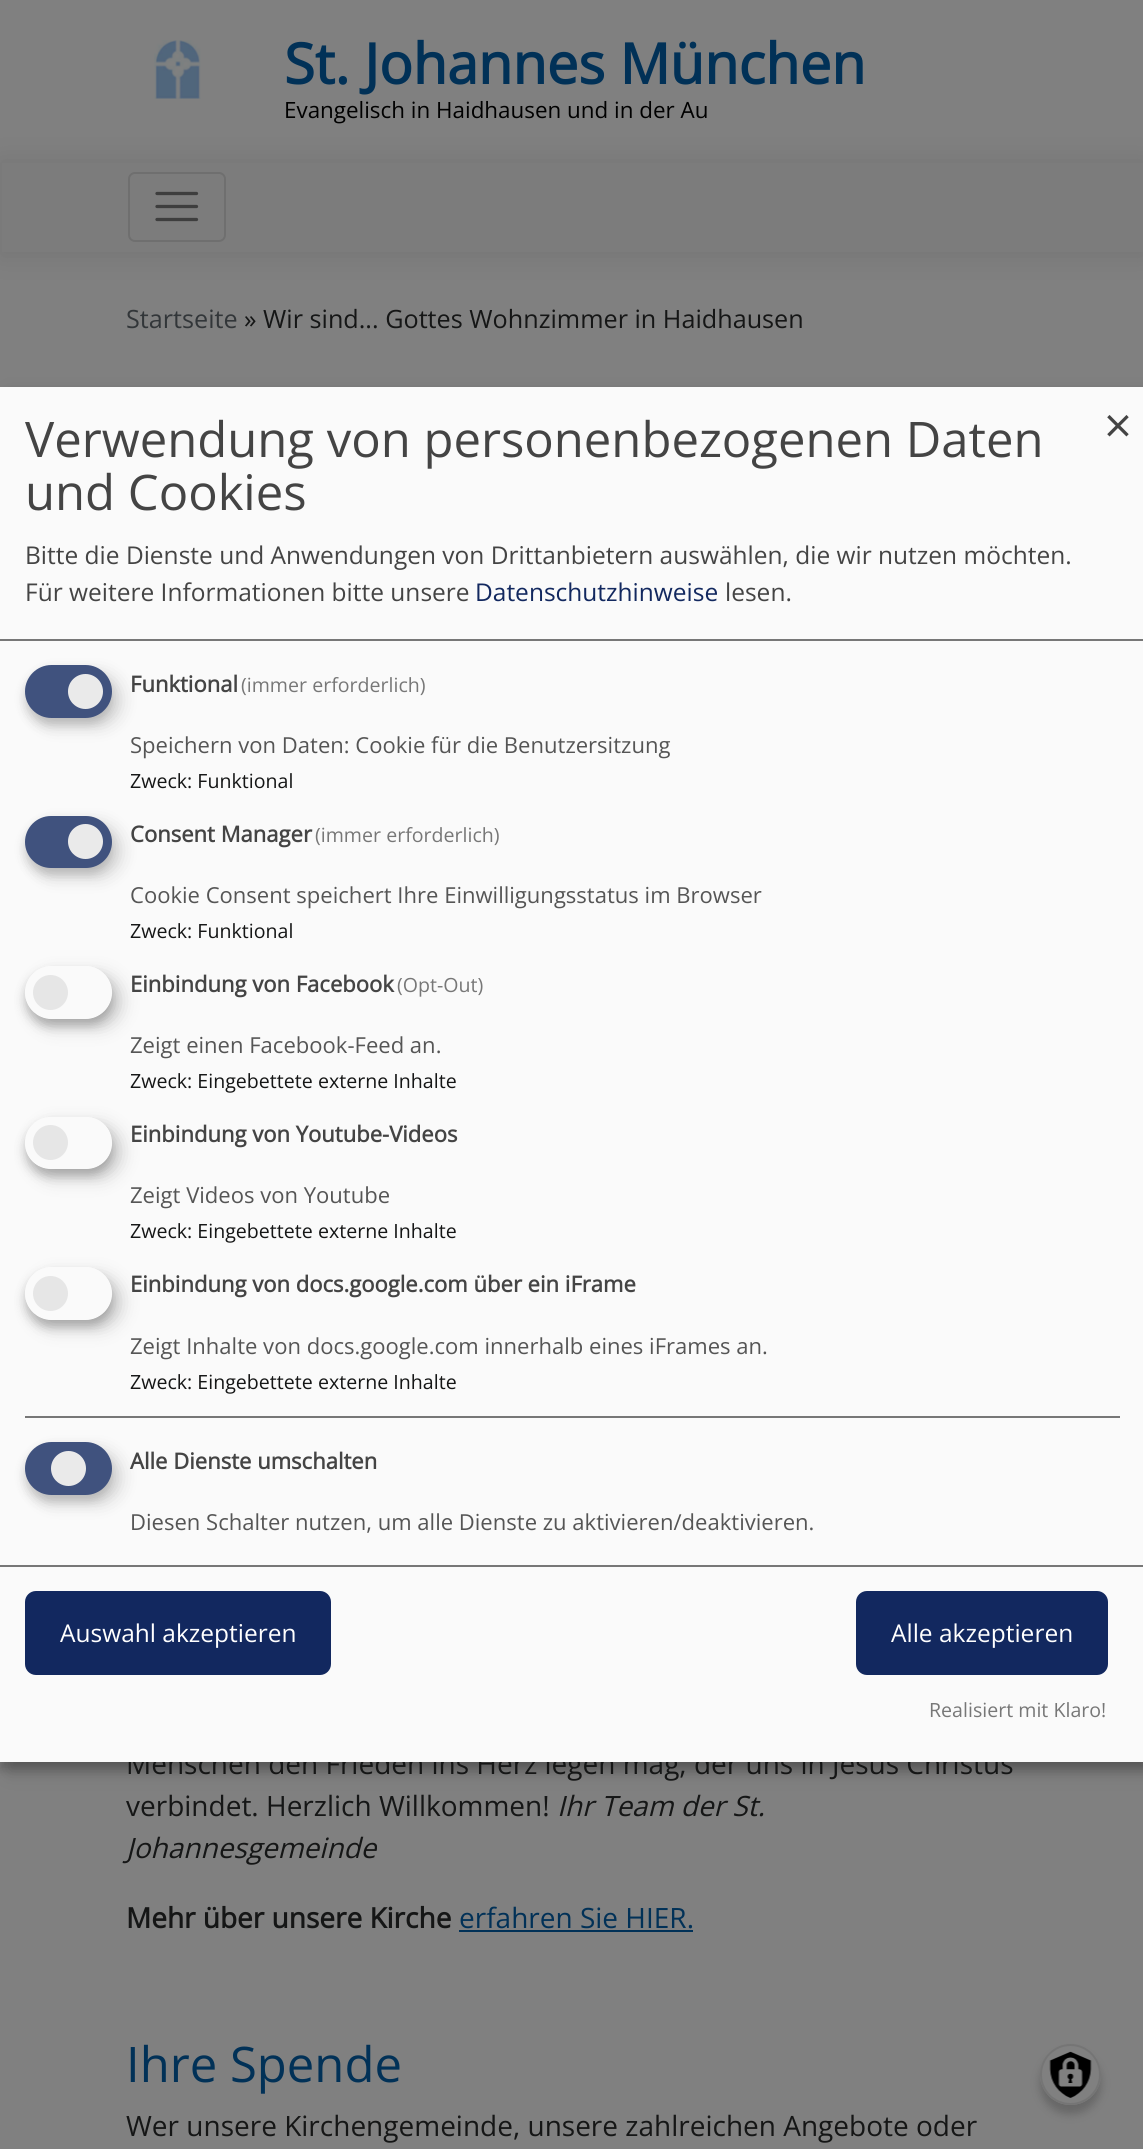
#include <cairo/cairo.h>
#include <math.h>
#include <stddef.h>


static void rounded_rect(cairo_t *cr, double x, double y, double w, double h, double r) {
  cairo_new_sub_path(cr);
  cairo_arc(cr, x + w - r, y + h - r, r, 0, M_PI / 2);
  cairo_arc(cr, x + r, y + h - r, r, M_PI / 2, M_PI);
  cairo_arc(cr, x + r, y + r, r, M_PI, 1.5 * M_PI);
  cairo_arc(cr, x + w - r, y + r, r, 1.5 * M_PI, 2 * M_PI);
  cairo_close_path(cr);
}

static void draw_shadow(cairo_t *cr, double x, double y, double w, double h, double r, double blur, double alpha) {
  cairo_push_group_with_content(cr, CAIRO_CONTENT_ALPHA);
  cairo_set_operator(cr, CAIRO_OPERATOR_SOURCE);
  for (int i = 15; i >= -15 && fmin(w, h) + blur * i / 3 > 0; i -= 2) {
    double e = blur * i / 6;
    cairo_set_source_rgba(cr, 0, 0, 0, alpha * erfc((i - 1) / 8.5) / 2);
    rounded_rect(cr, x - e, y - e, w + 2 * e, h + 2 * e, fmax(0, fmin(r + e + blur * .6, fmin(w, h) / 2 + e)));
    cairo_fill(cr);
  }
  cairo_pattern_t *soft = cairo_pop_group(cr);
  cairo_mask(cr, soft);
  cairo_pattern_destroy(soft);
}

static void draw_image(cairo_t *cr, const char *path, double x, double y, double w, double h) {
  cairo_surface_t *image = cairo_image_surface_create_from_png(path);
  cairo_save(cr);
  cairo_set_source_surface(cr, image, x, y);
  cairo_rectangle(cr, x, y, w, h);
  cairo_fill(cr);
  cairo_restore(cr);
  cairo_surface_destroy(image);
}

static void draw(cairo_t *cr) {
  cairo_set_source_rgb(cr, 128 / 255.0, 128 / 255.0, 128 / 255.0);
  cairo_paint(cr);
  draw_image(cr, "images/1.png", 154, 40, 47, 59);
  cairo_set_source_rgb(cr, 0, 0, 0);
  draw_shadow(cr, 0, 161, 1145, 95, 0, 13, 0.09);
  cairo_set_source_rgb(cr, 124 / 255.0, 124 / 255.0, 124 / 255.0);
  cairo_rectangle(cr, 2, 163, 1141, 89);
  cairo_fill(cr);
  rounded_rect(cr, 129, 173, 96, 68, 6);
  cairo_set_source_rgb(cr, 111 / 255.0, 111 / 255.0, 111 / 255.0);
  cairo_stroke(cr);
  cairo_new_path(cr);
  cairo_move_to(cr, 157, 193.5);
  cairo_line_to(cr, 196.5, 193.5);
  cairo_move_to(cr, 157, 206.5);
  cairo_line_to(cr, 196.5, 206.5);
  cairo_move_to(cr, 157, 219.5);
  cairo_line_to(cr, 196.5, 219.5);
  cairo_set_source_rgb(cr, 62 / 255.0, 62 / 255.0, 62 / 255.0);
  cairo_set_line_width(cr, 3.3);
  cairo_set_line_cap(cr, CAIRO_LINE_CAP_ROUND);
  cairo_stroke(cr);
  cairo_set_source_rgb(cr, 1 / 255.0, 49 / 255.0, 87 / 255.0);
  cairo_rectangle(cr, 459, 1930, 234, 2);
  cairo_fill(cr);
  cairo_set_source_rgb(cr, 0, 0, 0);
  draw_shadow(cr, 9, 396, 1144, 1375, 0, 9, 0.19);
  draw_shadow(cr, 0, 394, 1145, 1375, 0, 5, 0.2);
  draw_shadow(cr, 1040, 2053, 61, 61, 30.5, 4.5, 0.2);
  cairo_set_source_rgb(cr, 128 / 255.0, 128 / 255.0, 128 / 255.0);
  cairo_arc(cr, 1070.5, 2074.5, 30.5, 0, 2 * M_PI);
  cairo_fill(cr);
  draw_image(cr, "images/2.png", 1049, 2051, 43, 47);
  cairo_arc(cr, 1070.5, 2074.5, 29.5, 0, 2 * M_PI);
  cairo_set_source_rgb(cr, 117 / 255.0, 117 / 255.0, 117 / 255.0);
  cairo_set_line_width(cr, 2);
  cairo_set_line_cap(cr, CAIRO_LINE_CAP_BUTT);
  cairo_stroke(cr);
  cairo_select_font_face(cr, "Open Sans", CAIRO_FONT_SLANT_NORMAL, CAIRO_FONT_WEIGHT_BOLD);
  cairo_set_font_size(cr, 56);
  cairo_set_source_rgb(cr, 1 / 255.0, 49 / 255.0, 87 / 255.0);
  cairo_move_to(cr, 284, 84);
  cairo_show_text(cr, "St. Johannes München");
  cairo_select_font_face(cr, "Open Sans", CAIRO_FONT_SLANT_NORMAL, CAIRO_FONT_WEIGHT_NORMAL);
  cairo_set_font_size(cr, 22.4);
  cairo_set_source_rgb(cr, 0, 0, 0);
  cairo_move_to(cr, 284, 118);
  cairo_show_text(cr, "Evangelisch in Haidhausen und in der Au");
  cairo_set_font_size(cr, 25.2);
  cairo_set_source_rgb(cr, 50 / 255.0, 54 / 255.0, 57 / 255.0);
  cairo_move_to(cr, 126, 328);
  cairo_show_text(cr, "Startseite");
  cairo_set_source_rgb(cr, 21 / 255.0, 22 / 255.0, 22 / 255.0);
  cairo_move_to(cr, 244, 328);
  cairo_show_text(cr, "» Wir sind... Gottes Wohnzimmer in Haidhausen");
  cairo_set_font_size(cr, 28);
  cairo_move_to(cr, 126, 1774);
  cairo_show_text(cr, "Menschen den Frieden ins Herz legen mag, der uns in Jesus Christus");
  cairo_move_to(cr, 126, 1816);
  cairo_show_text(cr, "verbindet. Herzlich Willkommen!");
  cairo_select_font_face(cr, "Open Sans", CAIRO_FONT_SLANT_ITALIC, CAIRO_FONT_WEIGHT_NORMAL);
  cairo_move_to(cr, 557, 1816);
  cairo_show_text(cr, "Ihr Team der St.");
  cairo_move_to(cr, 126, 1858);
  cairo_show_text(cr, "Johannesgemeinde");
  cairo_select_font_face(cr, "Open Sans", CAIRO_FONT_SLANT_NORMAL, CAIRO_FONT_WEIGHT_BOLD);
  cairo_move_to(cr, 126, 1928);
  cairo_show_text(cr, "Mehr über unsere Kirche");
  cairo_select_font_face(cr, "Open Sans", CAIRO_FONT_SLANT_NORMAL, CAIRO_FONT_WEIGHT_NORMAL);
  cairo_set_source_rgb(cr, 1 / 255.0, 49 / 255.0, 87 / 255.0);
  cairo_move_to(cr, 459, 1928);
  cairo_show_text(cr, "erfahren Sie HIER.");
  cairo_set_font_size(cr, 49);
  cairo_move_to(cr, 126, 2082);
  cairo_show_text(cr, "Ihre Spende");
  cairo_set_font_size(cr, 28);
  cairo_set_source_rgb(cr, 21 / 255.0, 22 / 255.0, 22 / 255.0);
  cairo_move_to(cr, 126, 2136);
  cairo_show_text(cr, "Wer unsere Kirchengemeinde, unsere zahlreichen Angebote oder");
  cairo_set_source_rgb(cr, 250 / 255.0, 250 / 255.0, 250 / 255.0);
  cairo_rectangle(cr, 0, 387, 1143, 1375);
  cairo_fill(cr);
  cairo_set_source_rgb(cr, 119 / 255.0, 119 / 255.0, 119 / 255.0);
  cairo_rectangle(cr, 0, 639, 1143, 2);
  cairo_fill(cr);
  cairo_set_font_size(cr, 49);
  cairo_set_source_rgb(cr, 68 / 255.0, 68 / 255.0, 68 / 255.0);
  cairo_move_to(cr, 25, 457);
  cairo_show_text(cr, "Verwendung von personenbezogenen Daten");
  cairo_move_to(cr, 25, 510);
  cairo_show_text(cr, "und Cookies");
  cairo_set_font_size(cr, 24.5);
  cairo_move_to(cr, 25, 564);
  cairo_show_text(cr, "Bitte die Dienste und Anwendungen von Drittanbietern auswählen, die wir nutzen möchten.");
  cairo_move_to(cr, 25, 601);
  cairo_show_text(cr, "Für weitere Informationen bitte unsere");
  cairo_set_source_rgb(cr, 18 / 255.0, 40 / 255.0, 95 / 255.0);
  cairo_move_to(cr, 475, 601);
  cairo_show_text(cr, "Datenschutzhinweise");
  cairo_set_source_rgb(cr, 68 / 255.0, 68 / 255.0, 68 / 255.0);
  cairo_move_to(cr, 725, 601);
  cairo_show_text(cr, "lesen.");
  cairo_set_font_size(cr, 49);
  cairo_move_to(cr, 1104, 443);
  cairo_show_text(cr, "×");
  cairo_set_source_rgb(cr, 0, 0, 0);
  draw_shadow(cr, 33, 674, 88, 52, 26, 9, 0.15);
  cairo_set_source_rgb(cr, 50 / 255.0, 50 / 255.0, 50 / 255.0);
  draw_shadow(cr, 25, 672, 87, 53, 26.5, 5, 0.2);
  cairo_set_source_rgb(cr, 64 / 255.0, 82 / 255.0, 126 / 255.0);
  rounded_rect(cr, 25, 665, 87, 53, 26.5);
  cairo_fill(cr);
  cairo_set_source_rgb(cr, 234 / 255.0, 234 / 255.0, 234 / 255.0);
  cairo_arc(cr, 85.5, 691.5, 17.5, 0, 2 * M_PI);
  cairo_fill(cr);
  cairo_select_font_face(cr, "Open Sans", CAIRO_FONT_SLANT_NORMAL, CAIRO_FONT_WEIGHT_BOLD);
  cairo_set_font_size(cr, 22.05);
  cairo_set_source_rgb(cr, 68 / 255.0, 68 / 255.0, 68 / 255.0);
  cairo_move_to(cr, 130, 692);
  cairo_show_text(cr, "Funktional");
  cairo_select_font_face(cr, "Open Sans", CAIRO_FONT_SLANT_NORMAL, CAIRO_FONT_WEIGHT_NORMAL);
  cairo_set_font_size(cr, 19.6);
  cairo_set_source_rgb(cr, 119 / 255.0, 119 / 255.0, 119 / 255.0);
  cairo_move_to(cr, 241, 692);
  cairo_show_text(cr, "(immer erforderlich)");
  cairo_set_font_size(cr, 22.05);
  cairo_set_source_rgb(cr, 85 / 255.0, 85 / 255.0, 85 / 255.0);
  cairo_move_to(cr, 130, 753);
  cairo_show_text(cr, "Speichern von Daten: Cookie für die Benutzersitzung");
  cairo_set_font_size(cr, 19.6);
  cairo_set_source_rgb(cr, 21 / 255.0, 22 / 255.0, 22 / 255.0);
  cairo_move_to(cr, 130, 788);
  cairo_show_text(cr, "Zweck: Funktional");
  cairo_set_source_rgb(cr, 0, 0, 0);
  draw_shadow(cr, 33, 824, 88, 53, 26.5, 9, 0.15);
  cairo_set_source_rgb(cr, 50 / 255.0, 50 / 255.0, 50 / 255.0);
  draw_shadow(cr, 25, 823, 87, 52, 26, 5, 0.2);
  cairo_set_source_rgb(cr, 64 / 255.0, 82 / 255.0, 126 / 255.0);
  rounded_rect(cr, 25, 816, 87, 52, 26);
  cairo_fill(cr);
  cairo_set_source_rgb(cr, 234 / 255.0, 234 / 255.0, 234 / 255.0);
  cairo_arc(cr, 85.5, 841.5, 17.5, 0, 2 * M_PI);
  cairo_fill(cr);
  cairo_select_font_face(cr, "Open Sans", CAIRO_FONT_SLANT_NORMAL, CAIRO_FONT_WEIGHT_BOLD);
  cairo_set_font_size(cr, 22.05);
  cairo_set_source_rgb(cr, 68 / 255.0, 68 / 255.0, 68 / 255.0);
  cairo_move_to(cr, 130, 842);
  cairo_show_text(cr, "Consent Manager");
  cairo_select_font_face(cr, "Open Sans", CAIRO_FONT_SLANT_NORMAL, CAIRO_FONT_WEIGHT_NORMAL);
  cairo_set_font_size(cr, 19.6);
  cairo_set_source_rgb(cr, 119 / 255.0, 119 / 255.0, 119 / 255.0);
  cairo_move_to(cr, 315, 842);
  cairo_show_text(cr, "(immer erforderlich)");
  cairo_set_font_size(cr, 22.05);
  cairo_set_source_rgb(cr, 85 / 255.0, 85 / 255.0, 85 / 255.0);
  cairo_move_to(cr, 130, 903);
  cairo_show_text(cr, "Cookie Consent speichert Ihre Einwilligungsstatus im Browser");
  cairo_set_font_size(cr, 19.6);
  cairo_set_source_rgb(cr, 21 / 255.0, 22 / 255.0, 22 / 255.0);
  cairo_move_to(cr, 130, 938);
  cairo_show_text(cr, "Zweck: Funktional");
  cairo_save(cr);
  cairo_set_fill_rule(cr, CAIRO_FILL_RULE_EVEN_ODD);
  cairo_new_path(cr);
  cairo_move_to(cr, 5, 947);
  cairo_line_to(cr, 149, 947);
  cairo_line_to(cr, 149, 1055);
  cairo_line_to(cr, 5, 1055);
  cairo_close_path(cr);
  cairo_move_to(cr, 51.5, 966);
  cairo_line_to(cr, 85.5, 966);
  cairo_curve_to(cr, 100, 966, 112, 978, 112, 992.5);
  cairo_curve_to(cr, 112, 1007, 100, 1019, 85.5, 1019);
  cairo_line_to(cr, 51.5, 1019);
  cairo_curve_to(cr, 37, 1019, 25, 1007, 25, 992.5);
  cairo_curve_to(cr, 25, 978, 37, 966, 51.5, 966);
  cairo_close_path(cr);
  cairo_clip(cr);
  cairo_set_source_rgb(cr, 0, 0, 0);
  draw_shadow(cr, 33, 975, 88, 52, 26, 9, 0.19);
  cairo_restore(cr);
  cairo_save(cr);
  cairo_set_fill_rule(cr, CAIRO_FILL_RULE_EVEN_ODD);
  cairo_new_path(cr);
  cairo_move_to(cr, 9, 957);
  cairo_line_to(cr, 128, 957);
  cairo_line_to(cr, 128, 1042);
  cairo_line_to(cr, 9, 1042);
  cairo_close_path(cr);
  cairo_move_to(cr, 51.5, 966);
  cairo_line_to(cr, 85.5, 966);
  cairo_curve_to(cr, 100, 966, 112, 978, 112, 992.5);
  cairo_curve_to(cr, 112, 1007, 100, 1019, 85.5, 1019);
  cairo_line_to(cr, 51.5, 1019);
  cairo_curve_to(cr, 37, 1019, 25, 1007, 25, 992.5);
  cairo_curve_to(cr, 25, 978, 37, 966, 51.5, 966);
  cairo_close_path(cr);
  cairo_clip(cr);
  cairo_set_source_rgb(cr, 0, 0, 0);
  draw_shadow(cr, 25, 973, 87, 53, 26.5, 5, 0.2);
  cairo_restore(cr);
  cairo_set_source_rgb(cr, 230 / 255.0, 230 / 255.0, 230 / 255.0);
  cairo_arc(cr, 50.5, 992.5, 17.5, 0, 2 * M_PI);
  cairo_fill(cr);
  cairo_select_font_face(cr, "Open Sans", CAIRO_FONT_SLANT_NORMAL, CAIRO_FONT_WEIGHT_BOLD);
  cairo_set_font_size(cr, 22.05);
  cairo_set_source_rgb(cr, 68 / 255.0, 68 / 255.0, 68 / 255.0);
  cairo_move_to(cr, 130, 992);
  cairo_show_text(cr, "Einbindung von Facebook");
  cairo_select_font_face(cr, "Open Sans", CAIRO_FONT_SLANT_NORMAL, CAIRO_FONT_WEIGHT_NORMAL);
  cairo_set_font_size(cr, 19.6);
  cairo_set_source_rgb(cr, 119 / 255.0, 119 / 255.0, 119 / 255.0);
  cairo_move_to(cr, 397, 992);
  cairo_show_text(cr, "(Opt-Out)");
  cairo_set_font_size(cr, 22.05);
  cairo_set_source_rgb(cr, 85 / 255.0, 85 / 255.0, 85 / 255.0);
  cairo_move_to(cr, 130, 1053);
  cairo_show_text(cr, "Zeigt einen Facebook-Feed an.");
  cairo_set_font_size(cr, 19.6);
  cairo_set_source_rgb(cr, 21 / 255.0, 22 / 255.0, 22 / 255.0);
  cairo_move_to(cr, 130, 1088);
  cairo_show_text(cr, "Zweck: Eingebettete externe Inhalte");
  cairo_save(cr);
  cairo_set_fill_rule(cr, CAIRO_FILL_RULE_EVEN_ODD);
  cairo_new_path(cr);
  cairo_move_to(cr, 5, 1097);
  cairo_line_to(cr, 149, 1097);
  cairo_line_to(cr, 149, 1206);
  cairo_line_to(cr, 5, 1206);
  cairo_close_path(cr);
  cairo_move_to(cr, 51, 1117);
  cairo_line_to(cr, 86, 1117);
  cairo_curve_to(cr, 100.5, 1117, 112, 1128.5, 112, 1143);
  cairo_curve_to(cr, 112, 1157.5, 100.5, 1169, 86, 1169);
  cairo_line_to(cr, 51, 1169);
  cairo_curve_to(cr, 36.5, 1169, 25, 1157.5, 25, 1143);
  cairo_curve_to(cr, 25, 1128.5, 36.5, 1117, 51, 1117);
  cairo_close_path(cr);
  cairo_clip(cr);
  cairo_set_source_rgb(cr, 0, 0, 0);
  draw_shadow(cr, 33, 1125, 88, 53, 26.5, 9, 0.19);
  cairo_restore(cr);
  cairo_save(cr);
  cairo_set_fill_rule(cr, CAIRO_FILL_RULE_EVEN_ODD);
  cairo_new_path(cr);
  cairo_move_to(cr, 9, 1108);
  cairo_line_to(cr, 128, 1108);
  cairo_line_to(cr, 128, 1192);
  cairo_line_to(cr, 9, 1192);
  cairo_close_path(cr);
  cairo_move_to(cr, 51, 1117);
  cairo_line_to(cr, 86, 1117);
  cairo_curve_to(cr, 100.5, 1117, 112, 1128.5, 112, 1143);
  cairo_curve_to(cr, 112, 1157.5, 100.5, 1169, 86, 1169);
  cairo_line_to(cr, 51, 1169);
  cairo_curve_to(cr, 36.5, 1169, 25, 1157.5, 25, 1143);
  cairo_curve_to(cr, 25, 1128.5, 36.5, 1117, 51, 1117);
  cairo_close_path(cr);
  cairo_clip(cr);
  cairo_set_source_rgb(cr, 0, 0, 0);
  draw_shadow(cr, 25, 1124, 87, 52, 26, 5, 0.2);
  cairo_restore(cr);
  cairo_set_source_rgb(cr, 230 / 255.0, 230 / 255.0, 230 / 255.0);
  cairo_arc(cr, 50.5, 1142.5, 17.5, 0, 2 * M_PI);
  cairo_fill(cr);
  cairo_select_font_face(cr, "Open Sans", CAIRO_FONT_SLANT_NORMAL, CAIRO_FONT_WEIGHT_BOLD);
  cairo_set_font_size(cr, 22.05);
  cairo_set_source_rgb(cr, 68 / 255.0, 68 / 255.0, 68 / 255.0);
  cairo_move_to(cr, 130, 1142);
  cairo_show_text(cr, "Einbindung von Youtube-Videos");
  cairo_select_font_face(cr, "Open Sans", CAIRO_FONT_SLANT_NORMAL, CAIRO_FONT_WEIGHT_NORMAL);
  cairo_set_source_rgb(cr, 85 / 255.0, 85 / 255.0, 85 / 255.0);
  cairo_move_to(cr, 130, 1203);
  cairo_show_text(cr, "Zeigt Videos von Youtube");
  cairo_set_font_size(cr, 19.6);
  cairo_set_source_rgb(cr, 21 / 255.0, 22 / 255.0, 22 / 255.0);
  cairo_move_to(cr, 130, 1238);
  cairo_show_text(cr, "Zweck: Eingebettete externe Inhalte");
  cairo_save(cr);
  cairo_set_fill_rule(cr, CAIRO_FILL_RULE_EVEN_ODD);
  cairo_new_path(cr);
  cairo_move_to(cr, 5, 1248);
  cairo_line_to(cr, 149, 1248);
  cairo_line_to(cr, 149, 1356);
  cairo_line_to(cr, 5, 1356);
  cairo_close_path(cr);
  cairo_move_to(cr, 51.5, 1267);
  cairo_line_to(cr, 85.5, 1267);
  cairo_curve_to(cr, 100, 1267, 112, 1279, 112, 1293.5);
  cairo_curve_to(cr, 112, 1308, 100, 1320, 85.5, 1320);
  cairo_line_to(cr, 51.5, 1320);
  cairo_curve_to(cr, 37, 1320, 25, 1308, 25, 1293.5);
  cairo_curve_to(cr, 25, 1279, 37, 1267, 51.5, 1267);
  cairo_close_path(cr);
  cairo_clip(cr);
  cairo_set_source_rgb(cr, 0, 0, 0);
  draw_shadow(cr, 33, 1276, 88, 52, 26, 9, 0.19);
  cairo_restore(cr);
  cairo_save(cr);
  cairo_set_fill_rule(cr, CAIRO_FILL_RULE_EVEN_ODD);
  cairo_new_path(cr);
  cairo_move_to(cr, 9, 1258);
  cairo_line_to(cr, 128, 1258);
  cairo_line_to(cr, 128, 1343);
  cairo_line_to(cr, 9, 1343);
  cairo_close_path(cr);
  cairo_move_to(cr, 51.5, 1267);
  cairo_line_to(cr, 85.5, 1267);
  cairo_curve_to(cr, 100, 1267, 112, 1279, 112, 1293.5);
  cairo_curve_to(cr, 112, 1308, 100, 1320, 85.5, 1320);
  cairo_line_to(cr, 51.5, 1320);
  cairo_curve_to(cr, 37, 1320, 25, 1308, 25, 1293.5);
  cairo_curve_to(cr, 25, 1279, 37, 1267, 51.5, 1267);
  cairo_close_path(cr);
  cairo_clip(cr);
  cairo_set_source_rgb(cr, 0, 0, 0);
  draw_shadow(cr, 25, 1274, 87, 53, 26.5, 5, 0.2);
  cairo_restore(cr);
  cairo_set_source_rgb(cr, 230 / 255.0, 230 / 255.0, 230 / 255.0);
  cairo_arc(cr, 50.5, 1293.5, 17.5, 0, 2 * M_PI);
  cairo_fill(cr);
  cairo_select_font_face(cr, "Open Sans", CAIRO_FONT_SLANT_NORMAL, CAIRO_FONT_WEIGHT_BOLD);
  cairo_set_font_size(cr, 22.05);
  cairo_set_source_rgb(cr, 68 / 255.0, 68 / 255.0, 68 / 255.0);
  cairo_move_to(cr, 130, 1292);
  cairo_show_text(cr, "Einbindung von docs.google.com über ein iFrame");
  cairo_select_font_face(cr, "Open Sans", CAIRO_FONT_SLANT_NORMAL, CAIRO_FONT_WEIGHT_NORMAL);
  cairo_set_source_rgb(cr, 85 / 255.0, 85 / 255.0, 85 / 255.0);
  cairo_move_to(cr, 130, 1354);
  cairo_show_text(cr, "Zeigt Inhalte von docs.google.com innerhalb eines iFrames an.");
  cairo_set_font_size(cr, 19.6);
  cairo_set_source_rgb(cr, 21 / 255.0, 22 / 255.0, 22 / 255.0);
  cairo_move_to(cr, 130, 1389);
  cairo_show_text(cr, "Zweck: Eingebettete externe Inhalte");
  cairo_set_source_rgb(cr, 119 / 255.0, 119 / 255.0, 119 / 255.0);
  cairo_rectangle(cr, 25, 1416, 1095, 2);
  cairo_fill(cr);
  cairo_set_source_rgb(cr, 0, 0, 0);
  draw_shadow(cr, 33, 1451, 88, 52, 26, 9, 0.15);
  cairo_set_source_rgb(cr, 50 / 255.0, 50 / 255.0, 50 / 255.0);
  draw_shadow(cr, 25, 1449, 87, 53, 26.5, 5, 0.2);
  cairo_set_source_rgb(cr, 64 / 255.0, 82 / 255.0, 126 / 255.0);
  rounded_rect(cr, 25, 1442, 87, 53, 26.5);
  cairo_fill(cr);
  cairo_set_source_rgb(cr, 234 / 255.0, 234 / 255.0, 234 / 255.0);
  cairo_arc(cr, 68.5, 1468.5, 17.5, 0, 2 * M_PI);
  cairo_fill(cr);
  cairo_select_font_face(cr, "Open Sans", CAIRO_FONT_SLANT_NORMAL, CAIRO_FONT_WEIGHT_BOLD);
  cairo_set_font_size(cr, 22.05);
  cairo_set_source_rgb(cr, 68 / 255.0, 68 / 255.0, 68 / 255.0);
  cairo_move_to(cr, 130, 1469);
  cairo_show_text(cr, "Alle Dienste umschalten");
  cairo_select_font_face(cr, "Open Sans", CAIRO_FONT_SLANT_NORMAL, CAIRO_FONT_WEIGHT_NORMAL);
  cairo_set_source_rgb(cr, 85 / 255.0, 85 / 255.0, 85 / 255.0);
  cairo_move_to(cr, 130, 1530);
  cairo_show_text(cr, "Diesen Schalter nutzen, um alle Dienste zu aktivieren/deaktivieren.");
  cairo_set_source_rgb(cr, 119 / 255.0, 119 / 255.0, 119 / 255.0);
  cairo_rectangle(cr, 0, 1565, 1143, 2);
  cairo_fill(cr);
  cairo_set_source_rgb(cr, 18 / 255.0, 40 / 255.0, 95 / 255.0);
  rounded_rect(cr, 27.5, 1593.5, 301, 79, 8.5);
  cairo_fill_preserve(cr);
  cairo_set_line_width(cr, 5);
  cairo_stroke(cr);
  cairo_set_font_size(cr, 24.5);
  cairo_set_source_rgb(cr, 1, 1, 1);
  cairo_move_to(cr, 60, 1642);
  cairo_show_text(cr, "Auswahl akzeptieren");
  cairo_set_source_rgb(cr, 18 / 255.0, 40 / 255.0, 95 / 255.0);
  rounded_rect(cr, 858.5, 1593.5, 247, 79, 8.5);
  cairo_fill_preserve(cr);
  cairo_stroke(cr);
  cairo_set_source_rgb(cr, 1, 1, 1);
  cairo_move_to(cr, 891, 1642);
  cairo_show_text(cr, "Alle akzeptieren");
  cairo_set_font_size(cr, 19.6);
  cairo_set_source_rgb(cr, 119 / 255.0, 119 / 255.0, 119 / 255.0);
  cairo_move_to(cr, 929, 1717);
  cairo_show_text(cr, "Realisiert mit Klaro!");
}

int main(void) {
  cairo_surface_t *surface = cairo_image_surface_create(CAIRO_FORMAT_RGB24, 1143, 2149);
  cairo_t *cr = cairo_create(surface);
  cairo_font_options_t *options = cairo_font_options_create();
  cairo_font_options_set_hint_metrics(options, CAIRO_HINT_METRICS_OFF);
  cairo_font_options_set_hint_style(options, CAIRO_HINT_STYLE_NONE);
  cairo_set_font_options(cr, options);
  cairo_set_miter_limit(cr, 4);
  draw(cr);
  cairo_surface_write_to_png(surface, "out.png");
  cairo_font_options_destroy(options);
  cairo_destroy(cr);
  cairo_surface_destroy(surface);
  return 0;
}
